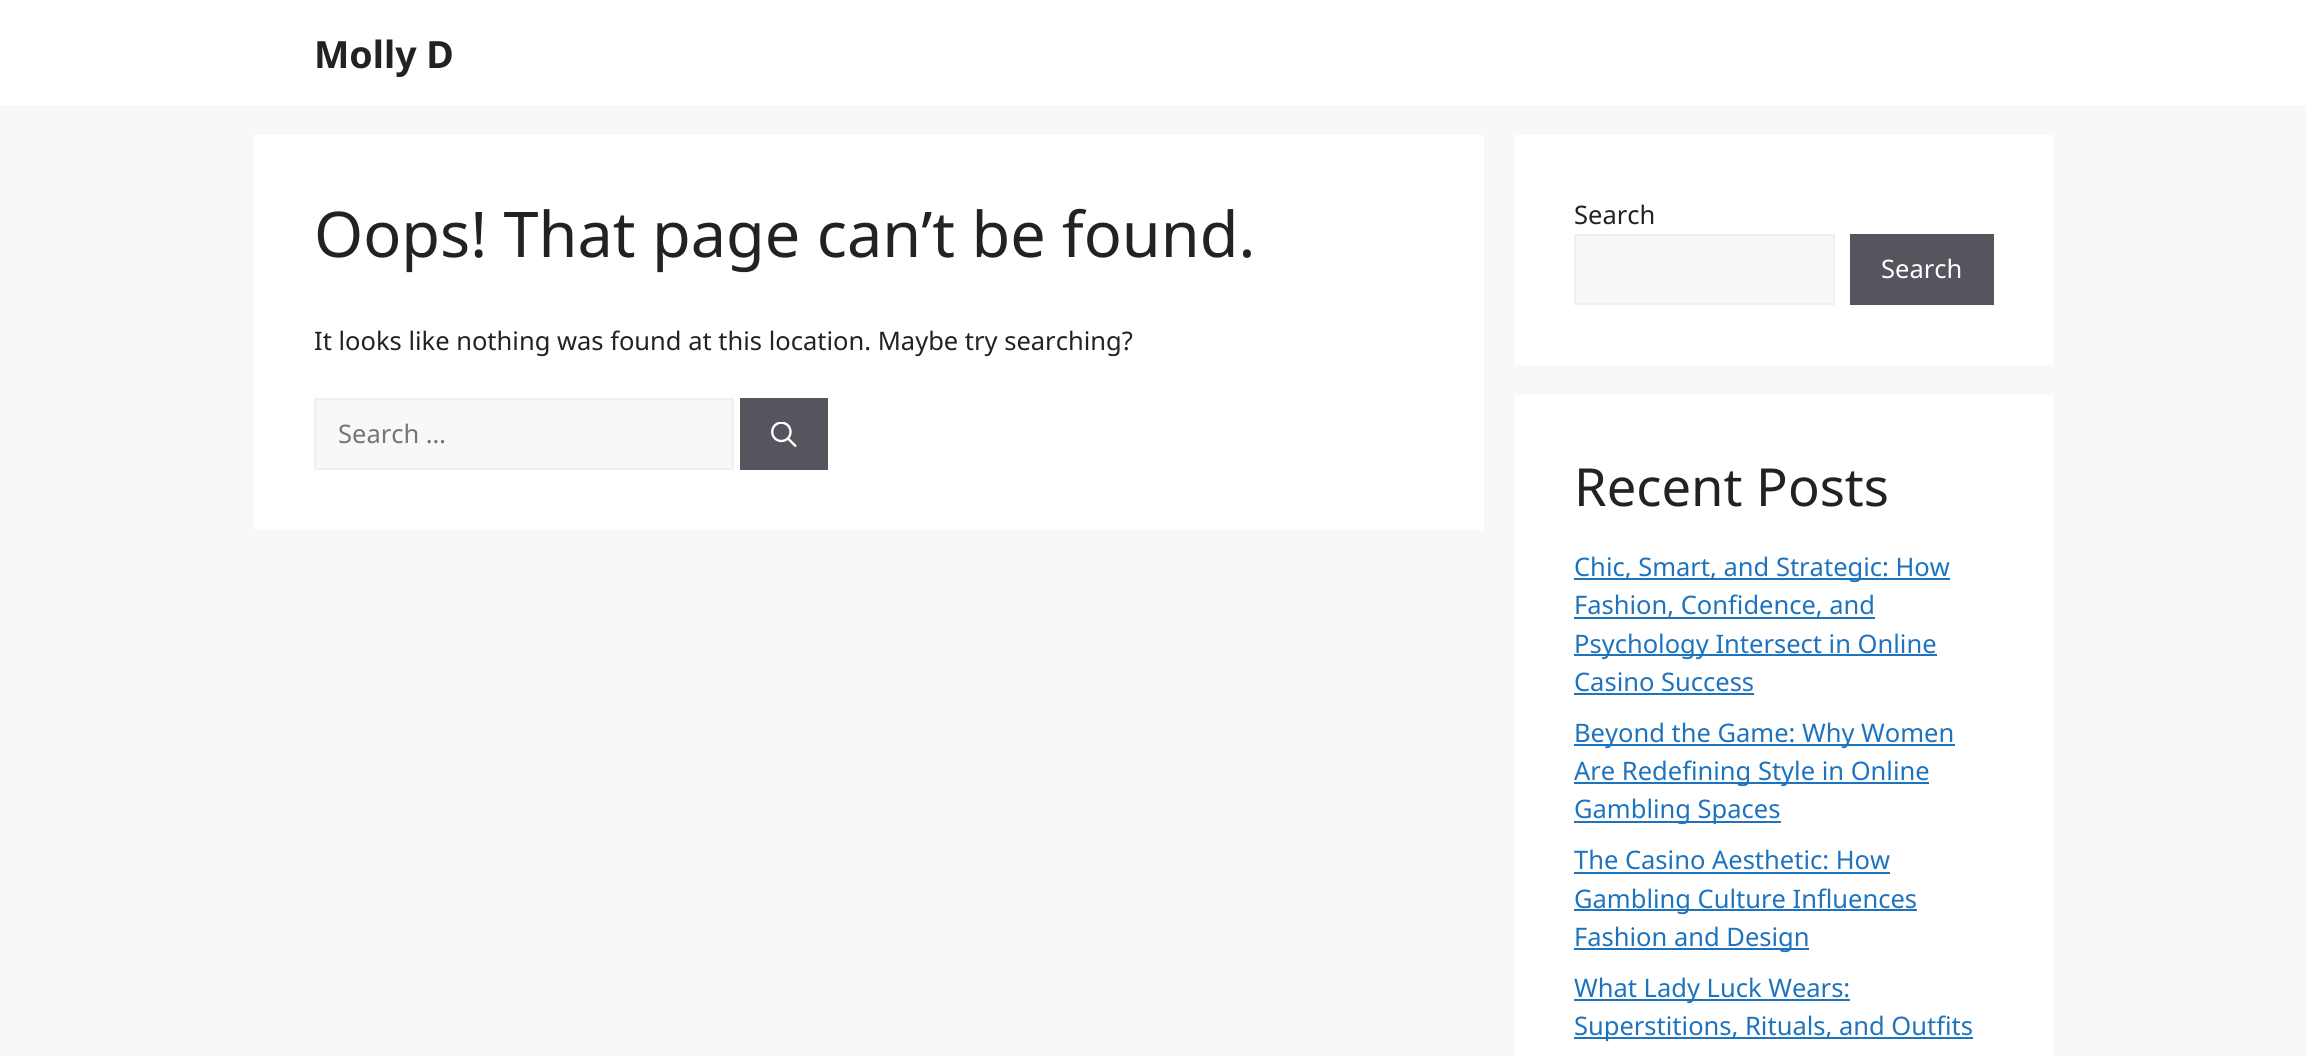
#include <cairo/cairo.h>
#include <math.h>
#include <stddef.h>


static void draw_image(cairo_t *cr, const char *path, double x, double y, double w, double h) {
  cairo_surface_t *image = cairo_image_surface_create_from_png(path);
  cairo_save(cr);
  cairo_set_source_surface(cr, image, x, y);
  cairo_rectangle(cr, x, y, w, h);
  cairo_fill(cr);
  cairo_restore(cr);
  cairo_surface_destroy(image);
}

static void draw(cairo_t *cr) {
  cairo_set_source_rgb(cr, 247 / 255.0, 248 / 255.0, 249 / 255.0);
  cairo_paint(cr);
  cairo_set_source_rgb(cr, 1, 1, 1);
  cairo_rectangle(cr, 0, 0, 2306, 105);
  cairo_fill(cr);
  cairo_rectangle(cr, 254, 135, 1230, 395);
  cairo_fill(cr);
  cairo_set_source_rgb(cr, 247 / 255.0, 248 / 255.0, 249 / 255.0);
  cairo_rectangle(cr, 315, 399, 418, 70);
  cairo_fill_preserve(cr);
  cairo_set_source_rgb(cr, 240 / 255.0, 240 / 255.0, 240 / 255.0);
  cairo_stroke(cr);
  cairo_set_source_rgb(cr, 85 / 255.0, 85 / 255.0, 94 / 255.0);
  cairo_rectangle(cr, 740, 398, 88, 72);
  cairo_fill(cr);
  draw_image(cr, "images/1.png", 771, 422, 26, 25);
  cairo_set_source_rgb(cr, 1, 1, 1);
  cairo_rectangle(cr, 1514, 135, 540, 230);
  cairo_fill(cr);
  cairo_set_source_rgb(cr, 247 / 255.0, 248 / 255.0, 249 / 255.0);
  cairo_rectangle(cr, 1575, 235, 259, 69);
  cairo_fill_preserve(cr);
  cairo_set_source_rgb(cr, 240 / 255.0, 240 / 255.0, 240 / 255.0);
  cairo_stroke(cr);
  cairo_set_source_rgb(cr, 85 / 255.0, 85 / 255.0, 94 / 255.0);
  cairo_rectangle(cr, 1850, 234, 144, 71);
  cairo_fill(cr);
  cairo_set_source_rgb(cr, 1, 1, 1);
  cairo_rectangle(cr, 1514, 395, 540, 661);
  cairo_fill(cr);
  cairo_set_source_rgb(cr, 30 / 255.0, 115 / 255.0, 190 / 255.0);
  cairo_rectangle(cr, 1574, 578, 376, 2);
  cairo_fill(cr);
  cairo_rectangle(cr, 1574, 617, 301, 2);
  cairo_fill(cr);
  cairo_rectangle(cr, 1574, 654, 363, 2);
  cairo_fill(cr);
  cairo_rectangle(cr, 1574, 693, 180, 2);
  cairo_fill(cr);
  cairo_rectangle(cr, 1574, 744, 381, 2);
  cairo_fill(cr);
  cairo_rectangle(cr, 1574, 782, 355, 2);
  cairo_fill(cr);
  cairo_rectangle(cr, 1574, 821, 207, 2);
  cairo_fill(cr);
  cairo_rectangle(cr, 1574, 872, 316, 2);
  cairo_fill(cr);
  cairo_rectangle(cr, 1574, 909, 343, 2);
  cairo_fill(cr);
  cairo_rectangle(cr, 1574, 948, 235, 2);
  cairo_fill(cr);
  cairo_rectangle(cr, 1574, 999, 276, 2);
  cairo_fill(cr);
  cairo_rectangle(cr, 1574, 1037, 399, 2);
  cairo_fill(cr);
  cairo_select_font_face(cr, "Noto Sans", CAIRO_FONT_SLANT_NORMAL, CAIRO_FONT_WEIGHT_BOLD);
  cairo_set_font_size(cr, 37.5);
  cairo_set_source_rgb(cr, 34 / 255.0, 34 / 255.0, 34 / 255.0);
  cairo_move_to(cr, 314, 68);
  cairo_show_text(cr, "Molly D");
  cairo_select_font_face(cr, "Noto Sans", CAIRO_FONT_SLANT_NORMAL, CAIRO_FONT_WEIGHT_NORMAL);
  cairo_set_font_size(cr, 63);
  cairo_move_to(cr, 314, 257);
  cairo_show_text(cr, "Oops! That page can’t be found.");
  cairo_set_font_size(cr, 25.5);
  cairo_move_to(cr, 314, 350);
  cairo_show_text(cr, "It looks like nothing was found at this location. Maybe try searching?");
  cairo_set_source_rgb(cr, 117 / 255.0, 117 / 255.0, 117 / 255.0);
  cairo_move_to(cr, 338, 443);
  cairo_show_text(cr, "Search …");
  cairo_set_source_rgb(cr, 34 / 255.0, 34 / 255.0, 34 / 255.0);
  cairo_move_to(cr, 1574, 224);
  cairo_show_text(cr, "Search");
  cairo_set_source_rgb(cr, 1, 1, 1);
  cairo_move_to(cr, 1881, 278);
  cairo_show_text(cr, "Search");
  cairo_set_font_size(cr, 52.5);
  cairo_set_source_rgb(cr, 34 / 255.0, 34 / 255.0, 34 / 255.0);
  cairo_move_to(cr, 1574, 506);
  cairo_show_text(cr, "Recent Posts");
  cairo_set_font_size(cr, 25.5);
  cairo_set_source_rgb(cr, 30 / 255.0, 115 / 255.0, 190 / 255.0);
  cairo_move_to(cr, 1574, 576);
  cairo_show_text(cr, "Chic, Smart, and Strategic: How");
  cairo_move_to(cr, 1574, 614);
  cairo_show_text(cr, "Fashion, Confidence, and");
  cairo_move_to(cr, 1574, 653);
  cairo_show_text(cr, "Psychology Intersect in Online");
  cairo_move_to(cr, 1574, 691);
  cairo_show_text(cr, "Casino Success");
  cairo_move_to(cr, 1574, 742);
  cairo_show_text(cr, "Beyond the Game: Why Women");
  cairo_move_to(cr, 1574, 780);
  cairo_show_text(cr, "Are Redefining Style in Online");
  cairo_move_to(cr, 1574, 818);
  cairo_show_text(cr, "Gambling Spaces");
  cairo_move_to(cr, 1574, 869);
  cairo_show_text(cr, "The Casino Aesthetic: How");
  cairo_move_to(cr, 1574, 908);
  cairo_show_text(cr, "Gambling Culture Influences");
  cairo_move_to(cr, 1574, 946);
  cairo_show_text(cr, "Fashion and Design");
  cairo_move_to(cr, 1574, 997);
  cairo_show_text(cr, "What Lady Luck Wears:");
  cairo_move_to(cr, 1574, 1035);
  cairo_show_text(cr, "Superstitions, Rituals, and Outfits");
}

int main(void) {
  cairo_surface_t *surface = cairo_image_surface_create(CAIRO_FORMAT_RGB24, 2306, 1056);
  cairo_t *cr = cairo_create(surface);
  cairo_font_options_t *options = cairo_font_options_create();
  cairo_font_options_set_hint_metrics(options, CAIRO_HINT_METRICS_OFF);
  cairo_font_options_set_hint_style(options, CAIRO_HINT_STYLE_NONE);
  cairo_set_font_options(cr, options);
  cairo_set_miter_limit(cr, 4);
  draw(cr);
  cairo_surface_write_to_png(surface, "out.png");
  cairo_font_options_destroy(options);
  cairo_destroy(cr);
  cairo_surface_destroy(surface);
  return 0;
}
